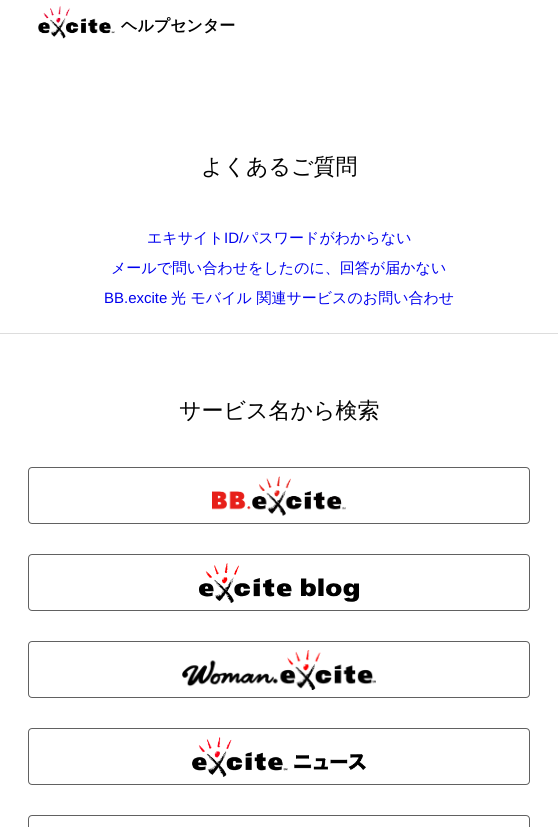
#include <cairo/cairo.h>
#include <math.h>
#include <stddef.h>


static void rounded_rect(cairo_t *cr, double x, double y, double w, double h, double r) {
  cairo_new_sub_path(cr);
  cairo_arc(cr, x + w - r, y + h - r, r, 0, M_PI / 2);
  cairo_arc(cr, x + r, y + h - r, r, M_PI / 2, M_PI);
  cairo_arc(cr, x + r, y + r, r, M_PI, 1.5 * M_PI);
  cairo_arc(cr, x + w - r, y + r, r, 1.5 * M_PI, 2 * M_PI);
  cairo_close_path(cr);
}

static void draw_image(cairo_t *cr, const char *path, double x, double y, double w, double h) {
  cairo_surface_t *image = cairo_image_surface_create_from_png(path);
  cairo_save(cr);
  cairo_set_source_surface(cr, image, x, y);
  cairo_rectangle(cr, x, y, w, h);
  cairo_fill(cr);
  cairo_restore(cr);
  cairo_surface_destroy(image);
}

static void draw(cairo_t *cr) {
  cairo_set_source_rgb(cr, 1, 1, 1);
  cairo_paint(cr);
  draw_image(cr, "images/1.png", 38, 6, 77, 33);
  cairo_set_source_rgb(cr, 221 / 255.0, 221 / 255.0, 221 / 255.0);
  cairo_rectangle(cr, 0, 333, 558, 1);
  cairo_fill(cr);
  rounded_rect(cr, 28.5, 467.5, 501, 56, 3.5);
  cairo_set_source_rgb(cr, 97 / 255.0, 97 / 255.0, 97 / 255.0);
  cairo_set_line_width(cr, 1);
  cairo_stroke(cr);
  draw_image(cr, "images/2.png", 212, 476, 134, 40);
  rounded_rect(cr, 28.5, 554.5, 501, 56, 3.5);
  cairo_stroke(cr);
  draw_image(cr, "images/3.png", 199, 563, 160, 40);
  rounded_rect(cr, 28.5, 641.5, 501, 56, 3.5);
  cairo_stroke(cr);
  draw_image(cr, "images/4.png", 182, 650, 194, 40);
  rounded_rect(cr, 28.5, 728.5, 501, 56, 3.5);
  cairo_stroke(cr);
  draw_image(cr, "images/5.png", 192, 737, 174, 40);
  rounded_rect(cr, 28.5, 815.5, 501, 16, 3.5);
  cairo_stroke(cr);
  cairo_select_font_face(cr, "WenQuanYi Zen Hei", CAIRO_FONT_SLANT_NORMAL, CAIRO_FONT_WEIGHT_BOLD);
  cairo_set_font_size(cr, 16);
  cairo_set_source_rgb(cr, 0, 0, 0);
  cairo_move_to(cr, 121, 31);
  cairo_show_text(cr, "ヘルプセンター");
  cairo_select_font_face(cr, "WenQuanYi Zen Hei Medium", CAIRO_FONT_SLANT_NORMAL, CAIRO_FONT_WEIGHT_NORMAL);
  cairo_set_font_size(cr, 22);
  cairo_move_to(cr, 201, 174);
  cairo_show_text(cr, "よくあるご質問");
  cairo_set_font_size(cr, 15);
  cairo_set_source_rgb(cr, 0, 0, 238 / 255.0);
  cairo_move_to(cr, 147, 243);
  cairo_show_text(cr, "エキサイト");
  cairo_select_font_face(cr, "Liberation Sans", CAIRO_FONT_SLANT_NORMAL, CAIRO_FONT_WEIGHT_NORMAL);
  cairo_move_to(cr, 224, 243);
  cairo_show_text(cr, "ID/");
  cairo_select_font_face(cr, "WenQuanYi Zen Hei Medium", CAIRO_FONT_SLANT_NORMAL, CAIRO_FONT_WEIGHT_NORMAL);
  cairo_move_to(cr, 243, 243);
  cairo_show_text(cr, "パスワードがわからない");
  cairo_move_to(cr, 111, 273);
  cairo_show_text(cr, "メールで問い合わせをしたのに、回答が届かない");
  cairo_select_font_face(cr, "Liberation Sans", CAIRO_FONT_SLANT_NORMAL, CAIRO_FONT_WEIGHT_NORMAL);
  cairo_move_to(cr, 104, 303);
  cairo_show_text(cr, "BB.excite");
  cairo_select_font_face(cr, "WenQuanYi Zen Hei Medium", CAIRO_FONT_SLANT_NORMAL, CAIRO_FONT_WEIGHT_NORMAL);
  cairo_move_to(cr, 171, 303);
  cairo_show_text(cr, "光 モバイル 関連サービスのお問い合わせ");
  cairo_set_font_size(cr, 22);
  cairo_set_source_rgb(cr, 0, 0, 0);
  cairo_move_to(cr, 179, 418);
  cairo_show_text(cr, "サービス名から検索");
}

int main(void) {
  cairo_surface_t *surface = cairo_image_surface_create(CAIRO_FORMAT_RGB24, 558, 827);
  cairo_t *cr = cairo_create(surface);
  cairo_font_options_t *options = cairo_font_options_create();
  cairo_font_options_set_hint_metrics(options, CAIRO_HINT_METRICS_OFF);
  cairo_font_options_set_hint_style(options, CAIRO_HINT_STYLE_NONE);
  cairo_set_font_options(cr, options);
  cairo_set_miter_limit(cr, 4);
  draw(cr);
  cairo_surface_write_to_png(surface, "out.png");
  cairo_font_options_destroy(options);
  cairo_destroy(cr);
  cairo_surface_destroy(surface);
  return 0;
}
